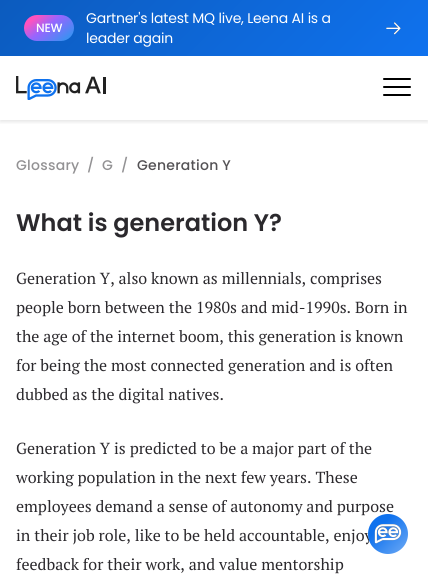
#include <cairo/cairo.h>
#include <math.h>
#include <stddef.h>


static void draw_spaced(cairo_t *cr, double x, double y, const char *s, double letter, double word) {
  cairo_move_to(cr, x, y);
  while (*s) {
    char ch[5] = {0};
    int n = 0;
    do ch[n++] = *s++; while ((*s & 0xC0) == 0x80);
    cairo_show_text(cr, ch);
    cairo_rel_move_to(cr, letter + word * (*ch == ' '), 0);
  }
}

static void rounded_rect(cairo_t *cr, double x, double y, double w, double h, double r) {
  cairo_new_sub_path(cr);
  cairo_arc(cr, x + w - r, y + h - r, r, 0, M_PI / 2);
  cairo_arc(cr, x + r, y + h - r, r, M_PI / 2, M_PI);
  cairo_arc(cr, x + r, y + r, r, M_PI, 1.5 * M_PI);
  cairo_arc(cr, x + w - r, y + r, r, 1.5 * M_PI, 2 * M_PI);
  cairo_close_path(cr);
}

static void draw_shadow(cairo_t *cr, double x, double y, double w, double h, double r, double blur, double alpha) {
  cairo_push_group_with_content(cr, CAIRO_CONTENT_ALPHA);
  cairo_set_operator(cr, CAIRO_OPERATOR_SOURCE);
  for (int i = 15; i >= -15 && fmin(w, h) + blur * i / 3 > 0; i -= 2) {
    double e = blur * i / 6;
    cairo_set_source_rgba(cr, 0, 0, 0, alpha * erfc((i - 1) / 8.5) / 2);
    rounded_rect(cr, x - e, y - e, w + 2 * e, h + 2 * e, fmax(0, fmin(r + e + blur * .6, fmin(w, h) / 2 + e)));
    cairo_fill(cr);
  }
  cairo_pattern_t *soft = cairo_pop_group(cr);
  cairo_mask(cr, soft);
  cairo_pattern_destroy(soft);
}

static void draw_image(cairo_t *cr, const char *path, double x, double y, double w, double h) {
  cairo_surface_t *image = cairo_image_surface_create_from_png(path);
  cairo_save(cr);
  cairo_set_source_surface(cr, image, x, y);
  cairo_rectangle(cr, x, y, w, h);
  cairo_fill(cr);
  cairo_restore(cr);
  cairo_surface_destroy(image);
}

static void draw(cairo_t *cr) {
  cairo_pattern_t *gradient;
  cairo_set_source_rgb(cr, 1, 1, 1);
  cairo_paint(cr);
  gradient = cairo_pattern_create_linear(93, -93, 335, 149);
  cairo_pattern_add_color_stop_rgba(gradient, 0, 12 / 255.0, 91 / 255.0, 190 / 255.0, 1);
  cairo_pattern_add_color_stop_rgba(gradient, 1, 15 / 255.0, 114 / 255.0, 238 / 255.0, 1);
  cairo_set_source(cr, gradient);
  cairo_pattern_destroy(gradient);
  cairo_rectangle(cr, 0, 0, 428, 56);
  cairo_fill(cr);
  gradient = cairo_pattern_create_linear(33, 7.9, 65, 48);
  cairo_pattern_add_color_stop_rgba(gradient, 0.17, 1, 82 / 255.0, 190 / 255.0, 1);
  cairo_pattern_add_color_stop_rgba(gradient, 0.45, 152 / 255.0, 101 / 255.0, 254 / 255.0, 1);
  cairo_pattern_add_color_stop_rgba(gradient, 0.87, 63 / 255.0, 143 / 255.0, 243 / 255.0, 1);
  cairo_set_source(cr, gradient);
  cairo_pattern_destroy(gradient);
  rounded_rect(cr, 24, 15, 50, 26, 13);
  cairo_fill(cr);
  draw_image(cr, "images/1.png", 386, 22, 15, 13);
  cairo_save(cr);
  cairo_rectangle(cr, 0, 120, 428, 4);
  cairo_clip(cr);
  cairo_set_source_rgb(cr, 0, 0, 0);
  draw_shadow(cr, 0, 58, 428, 64, 0, 2, 0.1);
  cairo_restore(cr);
  draw_image(cr, "images/2.png", 16, 76, 90, 24);
  cairo_set_source_rgb(cr, 0, 0, 0);
  rounded_rect(cr, 383, 78, 28, 2, 1);
  cairo_fill(cr);
  rounded_rect(cr, 383, 86, 28, 2, 1);
  cairo_fill(cr);
  rounded_rect(cr, 383, 94, 28, 2, 1);
  cairo_fill(cr);
  cairo_select_font_face(cr, "Poppins Medium", CAIRO_FONT_SLANT_NORMAL, CAIRO_FONT_WEIGHT_NORMAL);
  cairo_set_font_size(cr, 12);
  cairo_set_source_rgb(cr, 1, 1, 1);
  draw_spaced(cr, 36, 32, "NEW", -0.2, 0);
  cairo_select_font_face(cr, "Poppins", CAIRO_FONT_SLANT_NORMAL, CAIRO_FONT_WEIGHT_NORMAL);
  cairo_set_font_size(cr, 14);
  draw_spaced(cr, 86, 23, "Gartner's latest MQ live, Leena AI is a", -0.2, 0);
  draw_spaced(cr, 86, 43, "leader again", -0.2, 0);
  cairo_select_font_face(cr, "Poppins Medium", CAIRO_FONT_SLANT_NORMAL, CAIRO_FONT_WEIGHT_NORMAL);
  cairo_set_source_rgb(cr, 147 / 255.0, 146 / 255.0, 148 / 255.0);
  draw_spaced(cr, 16, 170, "Glossary", 0.25, 0);
  draw_spaced(cr, 87, 170, "/", 0.25, 0);
  draw_spaced(cr, 102, 170, "G", 0.25, 0);
  draw_spaced(cr, 121, 170, "/", 0.25, 0);
  cairo_set_source_rgb(cr, 84 / 255.0, 82 / 255.0, 85 / 255.0);
  draw_spaced(cr, 137, 170, "Generation Y", 0.25, 0);
  cairo_select_font_face(cr, "Poppins SemiBold", CAIRO_FONT_SLANT_NORMAL, CAIRO_FONT_WEIGHT_NORMAL);
  cairo_set_font_size(cr, 24);
  cairo_set_source_rgb(cr, 43 / 255.0, 41 / 255.0, 45 / 255.0);
  cairo_move_to(cr, 16, 231);
  cairo_show_text(cr, "What is generation Y?");
  cairo_select_font_face(cr, "PT Serif", CAIRO_FONT_SLANT_NORMAL, CAIRO_FONT_WEIGHT_NORMAL);
  cairo_set_font_size(cr, 16);
  cairo_move_to(cr, 16, 284);
  cairo_show_text(cr, "Generation Y, also known as millennials, comprises");
  cairo_move_to(cr, 16, 313);
  cairo_show_text(cr, "people born between the 1980s and mid-1990s. Born in");
  cairo_move_to(cr, 16, 342);
  cairo_show_text(cr, "the age of the internet boom, this generation is known");
  cairo_move_to(cr, 16, 371);
  cairo_show_text(cr, "for being the most connected generation and is often");
  cairo_move_to(cr, 16, 400);
  cairo_show_text(cr, "dubbed as the digital natives.");
  cairo_move_to(cr, 16, 454);
  cairo_show_text(cr, "Generation Y is predicted to be a major part of the");
  cairo_move_to(cr, 16, 483);
  cairo_show_text(cr, "working population in the next few years. These");
  cairo_move_to(cr, 16, 512);
  cairo_show_text(cr, "employees demand a sense of autonomy and purpose");
  cairo_move_to(cr, 16, 541);
  cairo_show_text(cr, "in their job role, like to be held accountable, enjoy");
  cairo_move_to(cr, 16, 570);
  cairo_show_text(cr, "feedback for their work, and value mentorship");
  gradient = cairo_pattern_create_linear(368, 514, 408, 554);
  cairo_pattern_add_color_stop_rgba(gradient, 0.31, 15 / 255.0, 114 / 255.0, 238 / 255.0, 1);
  cairo_pattern_add_color_stop_rgba(gradient, 1, 111 / 255.0, 170 / 255.0, 245 / 255.0, 1);
  cairo_set_source(cr, gradient);
  cairo_pattern_destroy(gradient);
  cairo_new_path(cr);
  cairo_arc(cr, 388, 534, 20, 0, 2 * M_PI);
  cairo_fill(cr);
  draw_image(cr, "images/3.png", 374, 524, 28, 20);
}

int main(void) {
  cairo_surface_t *surface = cairo_image_surface_create(CAIRO_FORMAT_RGB24, 428, 574);
  cairo_t *cr = cairo_create(surface);
  cairo_font_options_t *options = cairo_font_options_create();
  cairo_font_options_set_hint_metrics(options, CAIRO_HINT_METRICS_OFF);
  cairo_font_options_set_hint_style(options, CAIRO_HINT_STYLE_NONE);
  cairo_set_font_options(cr, options);
  cairo_set_miter_limit(cr, 4);
  draw(cr);
  cairo_surface_write_to_png(surface, "out.png");
  cairo_font_options_destroy(options);
  cairo_destroy(cr);
  cairo_surface_destroy(surface);
  return 0;
}
